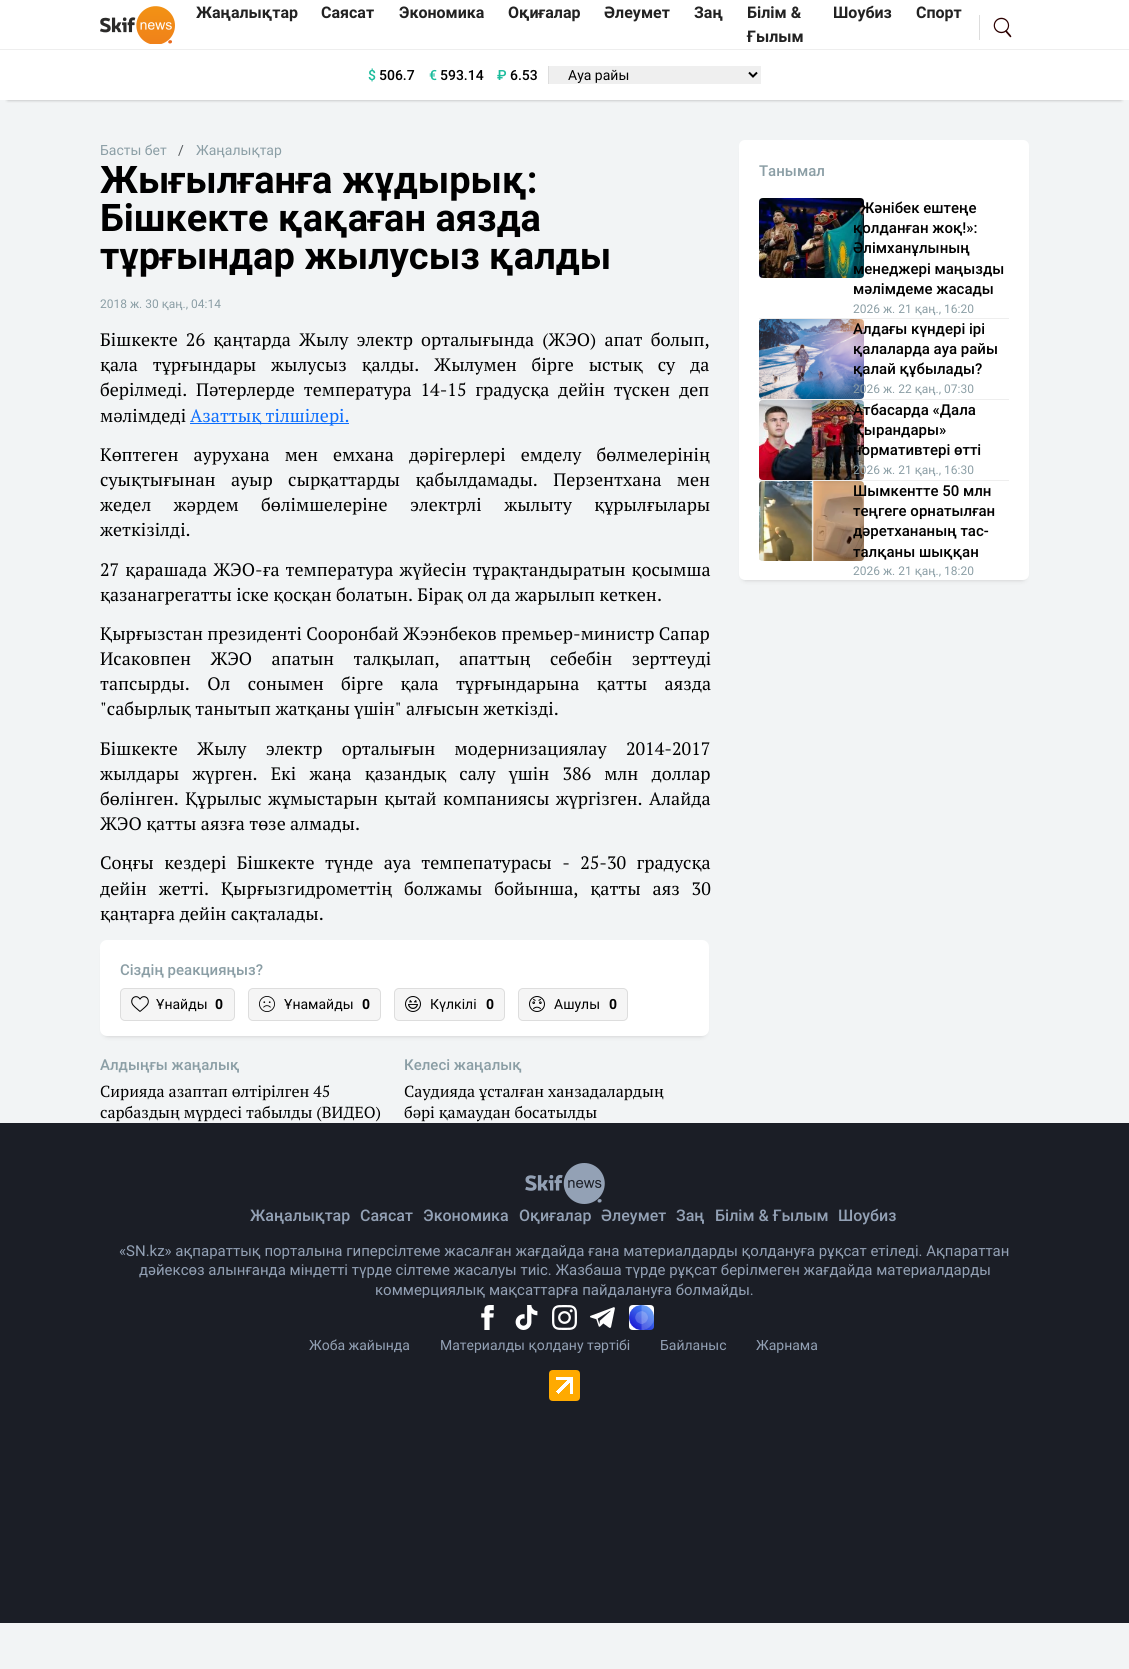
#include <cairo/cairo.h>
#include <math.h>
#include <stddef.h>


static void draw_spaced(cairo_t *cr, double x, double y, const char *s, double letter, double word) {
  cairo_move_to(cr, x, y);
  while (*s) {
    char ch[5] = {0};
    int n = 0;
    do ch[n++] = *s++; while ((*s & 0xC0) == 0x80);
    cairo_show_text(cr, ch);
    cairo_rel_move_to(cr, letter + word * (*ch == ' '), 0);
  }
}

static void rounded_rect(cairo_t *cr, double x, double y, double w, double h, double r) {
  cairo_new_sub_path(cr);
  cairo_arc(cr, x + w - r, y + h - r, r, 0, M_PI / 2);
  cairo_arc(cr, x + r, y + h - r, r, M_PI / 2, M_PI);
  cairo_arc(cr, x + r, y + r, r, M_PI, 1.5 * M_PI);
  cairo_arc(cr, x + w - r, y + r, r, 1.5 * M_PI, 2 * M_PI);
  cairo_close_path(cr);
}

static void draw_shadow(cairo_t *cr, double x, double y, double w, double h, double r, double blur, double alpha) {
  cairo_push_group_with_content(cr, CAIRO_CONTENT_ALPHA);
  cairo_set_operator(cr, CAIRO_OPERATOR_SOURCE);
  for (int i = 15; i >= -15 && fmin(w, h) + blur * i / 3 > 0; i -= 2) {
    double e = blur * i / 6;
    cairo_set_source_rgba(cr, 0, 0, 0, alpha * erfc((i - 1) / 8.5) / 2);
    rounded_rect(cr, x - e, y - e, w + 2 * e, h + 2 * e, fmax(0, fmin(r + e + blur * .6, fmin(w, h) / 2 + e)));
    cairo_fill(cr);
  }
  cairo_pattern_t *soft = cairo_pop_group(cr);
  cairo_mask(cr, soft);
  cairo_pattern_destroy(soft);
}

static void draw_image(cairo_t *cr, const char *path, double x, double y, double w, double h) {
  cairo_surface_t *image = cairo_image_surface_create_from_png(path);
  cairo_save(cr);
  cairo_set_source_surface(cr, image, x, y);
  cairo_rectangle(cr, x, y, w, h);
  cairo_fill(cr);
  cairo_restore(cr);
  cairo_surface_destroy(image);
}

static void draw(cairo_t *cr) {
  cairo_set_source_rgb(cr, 242 / 255.0, 244 / 255.0, 245 / 255.0);
  cairo_paint(cr);
  cairo_set_source_rgb(cr, 1, 1, 1);
  cairo_rectangle(cr, 0, 0, 1129, 100);
  cairo_fill(cr);
  cairo_set_source_rgb(cr, 238 / 255.0, 238 / 255.0, 238 / 255.0);
  cairo_rectangle(cr, 0, 49, 1129, 1);
  cairo_fill(cr);
  draw_image(cr, "images/1.png", 100, 6, 75, 38);
  cairo_set_source_rgb(cr, 221 / 255.0, 221 / 255.0, 221 / 255.0);
  cairo_rectangle(cr, 979, 15, 1, 25);
  cairo_fill(cr);
  draw_image(cr, "images/2.png", 993, 17, 19, 21);
  cairo_save(cr);
  cairo_rectangle(cr, 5, 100, 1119, 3);
  cairo_clip(cr);
  cairo_set_source_rgb(cr, 119 / 255.0, 119 / 255.0, 119 / 255.0);
  draw_shadow(cr, 8, 65, 1113, 34, 0, 2, 1);
  cairo_restore(cr);
  cairo_set_source_rgb(cr, 239 / 255.0, 239 / 255.0, 239 / 255.0);
  cairo_rectangle(cr, 549, 66, 212, 18);
  cairo_fill(cr);
  cairo_set_source_rgb(cr, 221 / 255.0, 221 / 255.0, 221 / 255.0);
  cairo_rectangle(cr, 548, 66, 1, 18);
  cairo_fill(cr);
  cairo_new_path(cr);
  cairo_move_to(cr, 749, 72.5);
  cairo_line_to(cr, 753, 76.5);
  cairo_line_to(cr, 757, 72.5);
  cairo_set_source_rgb(cr, 0, 0, 0);
  cairo_stroke(cr);
  cairo_set_source_rgb(cr, 13 / 255.0, 110 / 255.0, 253 / 255.0);
  cairo_rectangle(cr, 190, 423, 159, 1);
  cairo_fill(cr);
  cairo_set_source_rgb(cr, 153 / 255.0, 153 / 255.0, 153 / 255.0);
  draw_shadow(cr, 106, 950, 597, 84, 1, 3, 1);
  cairo_set_source_rgb(cr, 1, 1, 1);
  rounded_rect(cr, 100, 940, 609, 96, 7);
  cairo_fill(cr);
  cairo_set_source_rgb(cr, 245 / 255.0, 245 / 255.0, 245 / 255.0);
  rounded_rect(cr, 120.5, 988.5, 114, 32, 4.5);
  cairo_fill_preserve(cr);
  cairo_set_source_rgb(cr, 221 / 255.0, 221 / 255.0, 221 / 255.0);
  cairo_set_line_width(cr, 1);
  cairo_stroke(cr);
  draw_image(cr, "images/3.png", 131, 996, 18, 16);
  cairo_set_source_rgb(cr, 245 / 255.0, 245 / 255.0, 245 / 255.0);
  rounded_rect(cr, 248.5, 988.5, 132, 32, 4.5);
  cairo_fill_preserve(cr);
  cairo_set_source_rgb(cr, 221 / 255.0, 221 / 255.0, 221 / 255.0);
  cairo_stroke(cr);
  draw_image(cr, "images/4.png", 259, 996, 16, 16);
  cairo_set_source_rgb(cr, 245 / 255.0, 245 / 255.0, 245 / 255.0);
  rounded_rect(cr, 394.5, 988.5, 110, 32, 4.5);
  cairo_fill_preserve(cr);
  cairo_set_source_rgb(cr, 221 / 255.0, 221 / 255.0, 221 / 255.0);
  cairo_stroke(cr);
  draw_image(cr, "images/5.png", 405, 996, 16, 16);
  cairo_set_source_rgb(cr, 245 / 255.0, 245 / 255.0, 245 / 255.0);
  rounded_rect(cr, 518.5, 988.5, 109, 32, 4.5);
  cairo_fill_preserve(cr);
  cairo_set_source_rgb(cr, 221 / 255.0, 221 / 255.0, 221 / 255.0);
  cairo_stroke(cr);
  draw_image(cr, "images/6.png", 529, 996, 16, 16);
  cairo_set_source_rgb(cr, 153 / 255.0, 153 / 255.0, 153 / 255.0);
  draw_shadow(cr, 745, 150, 278, 428, 0, 3, 1);
  cairo_set_source_rgb(cr, 1, 1, 1);
  rounded_rect(cr, 739, 140, 290, 440, 6);
  cairo_fill(cr);
  cairo_set_source_rgb(cr, 238 / 255.0, 238 / 255.0, 238 / 255.0);
  cairo_rectangle(cr, 759, 318, 250, 1);
  cairo_fill(cr);
  draw_image(cr, "images/7.png", 759, 198, 105, 80);
  cairo_rectangle(cr, 759, 399, 250, 1);
  cairo_fill(cr);
  draw_image(cr, "images/8.png", 759, 319, 105, 80);
  cairo_rectangle(cr, 759, 480, 250, 1);
  cairo_fill(cr);
  draw_image(cr, "images/9.png", 759, 400, 105, 80);
  draw_image(cr, "images/10.png", 759, 481, 105, 80);
  cairo_set_source_rgb(cr, 27 / 255.0, 30 / 255.0, 38 / 255.0);
  cairo_rectangle(cr, 0, 1123, 1129, 500);
  cairo_fill(cr);
  draw_image(cr, "images/11.png", 525, 1163, 80, 41);
  draw_image(cr, "images/12.png", 481, 1305, 13, 25);
  draw_image(cr, "images/13.png", 515, 1305, 23, 25);
  draw_image(cr, "images/14.png", 552, 1305, 25, 25);
  draw_image(cr, "images/15.png", 590, 1307, 25, 21);
  draw_image(cr, "images/16.png", 629, 1305, 25, 25);
  draw_image(cr, "images/17.png", 549, 1370, 31, 31);
  cairo_select_font_face(cr, "Roboto", CAIRO_FONT_SLANT_NORMAL, CAIRO_FONT_WEIGHT_BOLD);
  cairo_set_font_size(cr, 16);
  cairo_set_source_rgb(cr, 34 / 255.0, 34 / 255.0, 34 / 255.0);
  cairo_move_to(cr, 196, 18);
  cairo_show_text(cr, "Жаңалықтар");
  cairo_move_to(cr, 321, 18);
  cairo_show_text(cr, "Саясат");
  cairo_move_to(cr, 399, 18);
  cairo_show_text(cr, "Экономика");
  cairo_move_to(cr, 508, 18);
  cairo_show_text(cr, "Оқиғалар");
  cairo_move_to(cr, 604, 18);
  cairo_show_text(cr, "Әлеумет");
  cairo_move_to(cr, 694, 18);
  cairo_show_text(cr, "Заң");
  cairo_move_to(cr, 747, 18);
  cairo_show_text(cr, "Білім &");
  cairo_move_to(cr, 747, 42);
  cairo_show_text(cr, "Ғылым");
  cairo_move_to(cr, 833, 18);
  cairo_show_text(cr, "Шоубиз");
  cairo_move_to(cr, 916, 18);
  cairo_show_text(cr, "Спорт");
  cairo_select_font_face(cr, "Roboto Medium", CAIRO_FONT_SLANT_NORMAL, CAIRO_FONT_WEIGHT_NORMAL);
  cairo_set_font_size(cr, 14);
  cairo_set_source_rgb(cr, 26 / 255.0, 188 / 255.0, 156 / 255.0);
  cairo_move_to(cr, 368, 80);
  cairo_show_text(cr, "$");
  cairo_set_source_rgb(cr, 0, 0, 0);
  cairo_move_to(cr, 379, 80);
  cairo_show_text(cr, "506.7");
  cairo_set_source_rgb(cr, 26 / 255.0, 188 / 255.0, 156 / 255.0);
  cairo_move_to(cr, 429, 80);
  cairo_show_text(cr, "€");
  cairo_set_source_rgb(cr, 0, 0, 0);
  cairo_move_to(cr, 440, 80);
  cairo_show_text(cr, "593.14");
  cairo_set_source_rgb(cr, 26 / 255.0, 188 / 255.0, 156 / 255.0);
  cairo_move_to(cr, 497, 80);
  cairo_show_text(cr, "₽");
  cairo_set_source_rgb(cr, 0, 0, 0);
  cairo_move_to(cr, 510, 80);
  cairo_show_text(cr, "6.53");
  cairo_select_font_face(cr, "Roboto", CAIRO_FONT_SLANT_NORMAL, CAIRO_FONT_WEIGHT_NORMAL);
  cairo_move_to(cr, 568, 80);
  cairo_show_text(cr, "Ауа райы");
  cairo_set_source_rgb(cr, 139 / 255.0, 158 / 255.0, 165 / 255.0);
  cairo_move_to(cr, 100, 155);
  cairo_show_text(cr, "Басты бет");
  cairo_set_source_rgb(cr, 85 / 255.0, 89 / 255.0, 92 / 255.0);
  cairo_move_to(cr, 178, 155);
  cairo_show_text(cr, "/");
  cairo_set_source_rgb(cr, 139 / 255.0, 158 / 255.0, 165 / 255.0);
  cairo_move_to(cr, 196, 155);
  cairo_show_text(cr, "Жаңалықтар");
  cairo_select_font_face(cr, "Roboto", CAIRO_FONT_SLANT_NORMAL, CAIRO_FONT_WEIGHT_BOLD);
  cairo_set_font_size(cr, 38);
  cairo_set_source_rgb(cr, 0, 0, 0);
  cairo_move_to(cr, 100, 193);
  cairo_show_text(cr, "Жығылғанға жұдырық:");
  cairo_move_to(cr, 100, 231);
  cairo_show_text(cr, "Бішкекте қақаған аязда");
  cairo_move_to(cr, 100, 269);
  cairo_show_text(cr, "тұрғындар жылусыз қалды");
  cairo_select_font_face(cr, "Roboto", CAIRO_FONT_SLANT_NORMAL, CAIRO_FONT_WEIGHT_NORMAL);
  cairo_set_font_size(cr, 12);
  cairo_set_source_rgb(cr, 139 / 255.0, 158 / 255.0, 165 / 255.0);
  cairo_move_to(cr, 100, 308);
  cairo_show_text(cr, "2018 ж. 30 қаң., 04:14");
  cairo_select_font_face(cr, "PT Serif", CAIRO_FONT_SLANT_NORMAL, CAIRO_FONT_WEIGHT_NORMAL);
  cairo_set_font_size(cr, 18);
  cairo_set_source_rgb(cr, 0, 0, 0);
  draw_spaced(cr, 100, 346, "Бішкекте 26 қаңтарда Жылу электр орталығында (ЖЭО) апат болып,", 0, 3.75);
  draw_spaced(cr, 100, 371, "қала тұрғындары жылусыз қалды. Жылумен бірге ыстық су да", 0, 10.5);
  draw_spaced(cr, 100, 396, "берілмеді. Пәтерлерде температура 14-15 градусқа дейін түскен деп", 0, 4.5);
  cairo_move_to(cr, 100, 422);
  cairo_show_text(cr, "мәлімдеді");
  cairo_set_source_rgb(cr, 13 / 255.0, 110 / 255.0, 253 / 255.0);
  cairo_move_to(cr, 190, 422);
  cairo_show_text(cr, "Азаттық тілшілері.");
  cairo_set_source_rgb(cr, 0, 0, 0);
  draw_spaced(cr, 100, 461, "Көптеген аурухана мен емхана дәрігерлері емделу бөлмелерінің", 0, 10.75);
  draw_spaced(cr, 100, 486, "суықтығынан ауыр сырқаттарды қабылдамады. Перзентхана мен", 0, 11);
  draw_spaced(cr, 100, 511, "жедел жәрдем бөлімшелеріне электрлі жылыту құрылғылары", 0, 18);
  cairo_move_to(cr, 100, 536);
  cairo_show_text(cr, "жеткізілді.");
  draw_spaced(cr, 100, 576, "27 қарашада ЖЭО-ға температура жүйесін тұрақтандыратын қосымша", 0, 1.75);
  cairo_move_to(cr, 100, 601);
  cairo_show_text(cr, "қазанагрегатты іске қосқан болатын. Бірақ ол да жарылып кеткен.");
  cairo_move_to(cr, 100, 640);
  cairo_show_text(cr, "Қырғызстан президенті Сооронбай Жээнбеков премьер-министр Сапар");
  draw_spaced(cr, 100, 665, "Исаковпен ЖЭО апатын талқылап, апаттың себебін зерттеуді", 0, 15);
  draw_spaced(cr, 100, 690, "тапсырды. Ол сонымен бірге қала тұрғындарына қатты аязда", 0, 13);
  cairo_move_to(cr, 100, 715);
  cairo_show_text(cr, "\"сабырлық танытып жатқаны үшін\" алғысын жеткізді.");
  draw_spaced(cr, 100, 755, "Бішкекте Жылу электр орталығын модернизациялау 2014-2017", 0, 15);
  draw_spaced(cr, 100, 780, "жылдары жүрген. Екі жаңа қазандық салу үшін 386 млн доллар", 0, 8.75);
  draw_spaced(cr, 100, 805, "бөлінген. Құрылыс жұмыстарын қытай компаниясы жүргізген. Алайда", 0, 2);
  cairo_move_to(cr, 100, 830);
  cairo_show_text(cr, "ЖЭО қатты аязға төзе алмады.");
  draw_spaced(cr, 100, 869, "Соңғы кездері Бішкекте түнде ауа темпепатурасы - 25-30 градусқа", 0, 6);
  draw_spaced(cr, 100, 895, "дейін жетті. Қырғызгидрометтің болжамы бойынша, қатты аяз 30", 0, 7.5);
  cairo_move_to(cr, 100, 920);
  cairo_show_text(cr, "қаңтарға дейін сақталады.");
  cairo_select_font_face(cr, "Roboto Medium", CAIRO_FONT_SLANT_NORMAL, CAIRO_FONT_WEIGHT_NORMAL);
  cairo_set_font_size(cr, 15);
  cairo_set_source_rgb(cr, 139 / 255.0, 158 / 255.0, 165 / 255.0);
  cairo_move_to(cr, 120, 975);
  cairo_show_text(cr, "Сіздің реакцияңыз?");
  cairo_select_font_face(cr, "Roboto", CAIRO_FONT_SLANT_NORMAL, CAIRO_FONT_WEIGHT_NORMAL);
  cairo_set_font_size(cr, 14);
  cairo_set_source_rgb(cr, 0, 0, 0);
  cairo_move_to(cr, 156, 1009);
  cairo_show_text(cr, "Ұнайды");
  cairo_select_font_face(cr, "Roboto", CAIRO_FONT_SLANT_NORMAL, CAIRO_FONT_WEIGHT_BOLD);
  cairo_move_to(cr, 215, 1009);
  cairo_show_text(cr, "0");
  cairo_select_font_face(cr, "Roboto", CAIRO_FONT_SLANT_NORMAL, CAIRO_FONT_WEIGHT_NORMAL);
  cairo_move_to(cr, 284, 1009);
  cairo_show_text(cr, "Ұнамайды");
  cairo_select_font_face(cr, "Roboto", CAIRO_FONT_SLANT_NORMAL, CAIRO_FONT_WEIGHT_BOLD);
  cairo_move_to(cr, 362, 1009);
  cairo_show_text(cr, "0");
  cairo_select_font_face(cr, "Roboto", CAIRO_FONT_SLANT_NORMAL, CAIRO_FONT_WEIGHT_NORMAL);
  cairo_move_to(cr, 430, 1009);
  cairo_show_text(cr, "Күлкілі");
  cairo_select_font_face(cr, "Roboto", CAIRO_FONT_SLANT_NORMAL, CAIRO_FONT_WEIGHT_BOLD);
  cairo_move_to(cr, 486, 1009);
  cairo_show_text(cr, "0");
  cairo_select_font_face(cr, "Roboto", CAIRO_FONT_SLANT_NORMAL, CAIRO_FONT_WEIGHT_NORMAL);
  cairo_move_to(cr, 554, 1009);
  cairo_show_text(cr, "Ашулы");
  cairo_select_font_face(cr, "Roboto", CAIRO_FONT_SLANT_NORMAL, CAIRO_FONT_WEIGHT_BOLD);
  cairo_move_to(cr, 609, 1009);
  cairo_show_text(cr, "0");
  cairo_select_font_face(cr, "Roboto Medium", CAIRO_FONT_SLANT_NORMAL, CAIRO_FONT_WEIGHT_NORMAL);
  cairo_set_font_size(cr, 15);
  cairo_set_source_rgb(cr, 139 / 255.0, 158 / 255.0, 165 / 255.0);
  cairo_move_to(cr, 100, 1070);
  cairo_show_text(cr, "Алдыңғы жаңалық");
  cairo_select_font_face(cr, "PT Serif", CAIRO_FONT_SLANT_NORMAL, CAIRO_FONT_WEIGHT_NORMAL);
  cairo_set_font_size(cr, 16);
  cairo_set_source_rgb(cr, 0, 0, 0);
  cairo_move_to(cr, 100, 1097);
  cairo_show_text(cr, "Сирияда азаптап өлтірілген 45");
  cairo_move_to(cr, 100, 1118);
  cairo_show_text(cr, "сарбаздың мүрдесі табылды (ВИДЕО)");
  cairo_select_font_face(cr, "Roboto Medium", CAIRO_FONT_SLANT_NORMAL, CAIRO_FONT_WEIGHT_NORMAL);
  cairo_set_font_size(cr, 15);
  cairo_set_source_rgb(cr, 139 / 255.0, 158 / 255.0, 165 / 255.0);
  cairo_move_to(cr, 404, 1070);
  cairo_show_text(cr, "Келесі жаңалық");
  cairo_select_font_face(cr, "PT Serif", CAIRO_FONT_SLANT_NORMAL, CAIRO_FONT_WEIGHT_NORMAL);
  cairo_set_font_size(cr, 16);
  cairo_set_source_rgb(cr, 0, 0, 0);
  cairo_move_to(cr, 404, 1097);
  cairo_show_text(cr, "Саудияда ұсталған ханзадалардың");
  cairo_move_to(cr, 404, 1118);
  cairo_show_text(cr, "бәрі қамаудан босатылды");
  cairo_select_font_face(cr, "Roboto Medium", CAIRO_FONT_SLANT_NORMAL, CAIRO_FONT_WEIGHT_NORMAL);
  cairo_set_font_size(cr, 15);
  cairo_set_source_rgb(cr, 139 / 255.0, 158 / 255.0, 165 / 255.0);
  cairo_move_to(cr, 759, 176);
  cairo_show_text(cr, "Танымал");
  cairo_set_source_rgb(cr, 0, 0, 0);
  cairo_move_to(cr, 860, 213);
  cairo_show_text(cr, "Жәнібек ештеңе");
  cairo_move_to(cr, 853, 233);
  cairo_show_text(cr, "қолданған жоқ!»:");
  cairo_move_to(cr, 853, 253);
  cairo_show_text(cr, "Әлімханұлының");
  cairo_move_to(cr, 853, 274);
  cairo_show_text(cr, "менеджері маңызды");
  cairo_move_to(cr, 853, 294);
  cairo_show_text(cr, "мәлімдеме жасады");
  cairo_select_font_face(cr, "Roboto", CAIRO_FONT_SLANT_NORMAL, CAIRO_FONT_WEIGHT_NORMAL);
  cairo_set_font_size(cr, 12);
  cairo_set_source_rgb(cr, 139 / 255.0, 158 / 255.0, 165 / 255.0);
  cairo_move_to(cr, 853, 313);
  cairo_show_text(cr, "2026 ж. 21 қаң., 16:20");
  cairo_select_font_face(cr, "Roboto Medium", CAIRO_FONT_SLANT_NORMAL, CAIRO_FONT_WEIGHT_NORMAL);
  cairo_set_font_size(cr, 15);
  cairo_set_source_rgb(cr, 0, 0, 0);
  cairo_move_to(cr, 853, 334);
  cairo_show_text(cr, "Алдағы күндері ірі");
  cairo_move_to(cr, 853, 354);
  cairo_show_text(cr, "қалаларда ауа райы");
  cairo_move_to(cr, 853, 374);
  cairo_show_text(cr, "қалай құбылады?");
  cairo_select_font_face(cr, "Roboto", CAIRO_FONT_SLANT_NORMAL, CAIRO_FONT_WEIGHT_NORMAL);
  cairo_set_font_size(cr, 12);
  cairo_set_source_rgb(cr, 139 / 255.0, 158 / 255.0, 165 / 255.0);
  cairo_move_to(cr, 853, 393);
  cairo_show_text(cr, "2026 ж. 22 қаң., 07:30");
  cairo_select_font_face(cr, "Roboto Medium", CAIRO_FONT_SLANT_NORMAL, CAIRO_FONT_WEIGHT_NORMAL);
  cairo_set_font_size(cr, 15);
  cairo_set_source_rgb(cr, 0, 0, 0);
  cairo_move_to(cr, 853, 415);
  cairo_show_text(cr, "Атбасарда «Дала");
  cairo_move_to(cr, 853, 435);
  cairo_show_text(cr, "Қырандары»");
  cairo_move_to(cr, 853, 455);
  cairo_show_text(cr, "нормативтері өтті");
  cairo_select_font_face(cr, "Roboto", CAIRO_FONT_SLANT_NORMAL, CAIRO_FONT_WEIGHT_NORMAL);
  cairo_set_font_size(cr, 12);
  cairo_set_source_rgb(cr, 139 / 255.0, 158 / 255.0, 165 / 255.0);
  cairo_move_to(cr, 853, 474);
  cairo_show_text(cr, "2026 ж. 21 қаң., 16:30");
  cairo_select_font_face(cr, "Roboto Medium", CAIRO_FONT_SLANT_NORMAL, CAIRO_FONT_WEIGHT_NORMAL);
  cairo_set_font_size(cr, 15);
  cairo_set_source_rgb(cr, 0, 0, 0);
  cairo_move_to(cr, 853, 496);
  cairo_show_text(cr, "Шымкентте 50 млн");
  cairo_move_to(cr, 853, 516);
  cairo_show_text(cr, "теңгеге орнатылған");
  cairo_move_to(cr, 853, 536);
  cairo_show_text(cr, "дәретхананың тас-");
  cairo_move_to(cr, 853, 557);
  cairo_show_text(cr, "талқаны шыққан");
  cairo_select_font_face(cr, "Roboto", CAIRO_FONT_SLANT_NORMAL, CAIRO_FONT_WEIGHT_NORMAL);
  cairo_set_font_size(cr, 12);
  cairo_set_source_rgb(cr, 139 / 255.0, 158 / 255.0, 165 / 255.0);
  cairo_move_to(cr, 853, 575);
  cairo_show_text(cr, "2026 ж. 21 қаң., 18:20");
  cairo_select_font_face(cr, "Roboto Medium", CAIRO_FONT_SLANT_NORMAL, CAIRO_FONT_WEIGHT_NORMAL);
  cairo_set_font_size(cr, 16);
  cairo_set_source_rgb(cr, 147 / 255.0, 161 / 255.0, 181 / 255.0);
  cairo_move_to(cr, 250, 1221);
  cairo_show_text(cr, "Жаңалықтар");
  cairo_move_to(cr, 360, 1221);
  cairo_show_text(cr, "Саясат");
  cairo_move_to(cr, 423, 1221);
  cairo_show_text(cr, "Экономика");
  cairo_move_to(cr, 519, 1221);
  cairo_show_text(cr, "Оқиғалар");
  cairo_move_to(cr, 601, 1221);
  cairo_show_text(cr, "Әлеумет");
  cairo_move_to(cr, 676, 1221);
  cairo_show_text(cr, "Заң");
  cairo_move_to(cr, 715, 1221);
  cairo_show_text(cr, "Білім & Ғылым");
  cairo_move_to(cr, 838, 1221);
  cairo_show_text(cr, "Шоубиз");
  cairo_select_font_face(cr, "Roboto", CAIRO_FONT_SLANT_NORMAL, CAIRO_FONT_WEIGHT_NORMAL);
  cairo_set_font_size(cr, 15);
  cairo_move_to(cr, 119, 1256);
  cairo_show_text(cr, "«SN.kz» ақпараттық порталына гиперсілтеме жасалған жағдайда ғана материалдарды қолдануға рұқсат етіледі. Ақпараттан");
  cairo_move_to(cr, 139, 1275);
  cairo_show_text(cr, "дәйексөз алынғанда міндетті түрде сілтеме жасалуы тиіс. Жазбаша түрде рұқсат берілмеген жағдайда материалдарды");
  cairo_move_to(cr, 375, 1295);
  cairo_show_text(cr, "коммерциялық мақсаттарға пайдалануға болмайды.");
  cairo_set_font_size(cr, 14);
  cairo_move_to(cr, 309, 1350);
  cairo_show_text(cr, "Жоба жайында");
  cairo_move_to(cr, 440, 1350);
  cairo_show_text(cr, "Материалды қолдану тәртібі");
  cairo_move_to(cr, 660, 1350);
  cairo_show_text(cr, "Байланыс");
  cairo_move_to(cr, 756, 1350);
  cairo_show_text(cr, "Жарнама");
}

int main(void) {
  cairo_surface_t *surface = cairo_image_surface_create(CAIRO_FORMAT_RGB24, 1129, 1669);
  cairo_t *cr = cairo_create(surface);
  cairo_font_options_t *options = cairo_font_options_create();
  cairo_font_options_set_hint_metrics(options, CAIRO_HINT_METRICS_OFF);
  cairo_font_options_set_hint_style(options, CAIRO_HINT_STYLE_NONE);
  cairo_set_font_options(cr, options);
  cairo_set_miter_limit(cr, 4);
  draw(cr);
  cairo_surface_write_to_png(surface, "out.png");
  cairo_font_options_destroy(options);
  cairo_destroy(cr);
  cairo_surface_destroy(surface);
  return 0;
}
